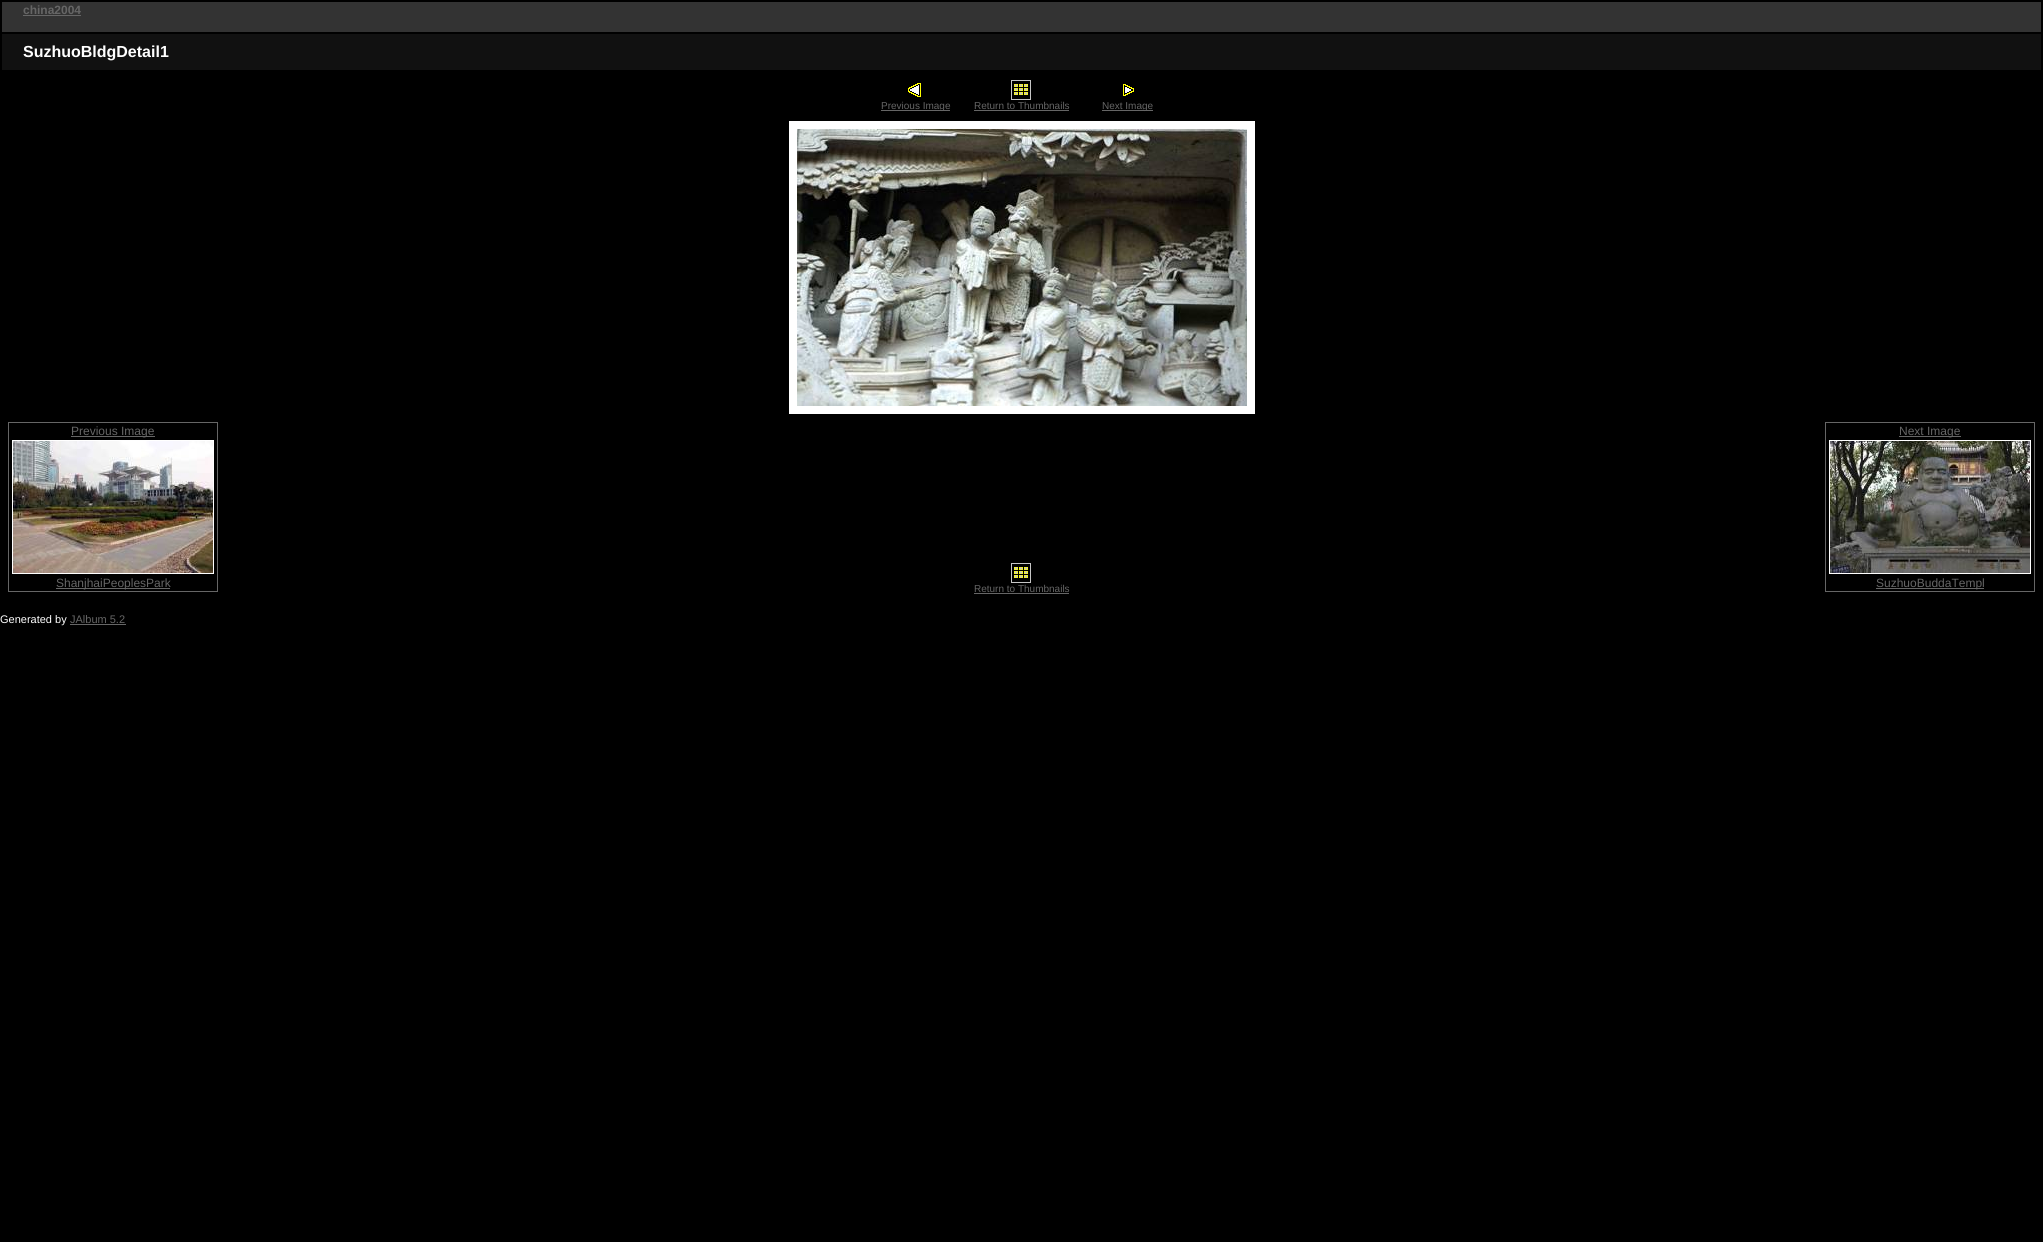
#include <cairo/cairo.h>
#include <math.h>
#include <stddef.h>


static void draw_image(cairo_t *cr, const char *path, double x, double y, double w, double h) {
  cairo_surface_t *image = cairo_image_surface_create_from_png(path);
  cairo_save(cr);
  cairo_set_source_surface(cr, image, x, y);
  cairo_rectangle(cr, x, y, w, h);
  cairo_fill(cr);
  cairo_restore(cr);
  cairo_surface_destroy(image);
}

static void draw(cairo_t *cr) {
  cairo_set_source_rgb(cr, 0, 0, 0);
  cairo_paint(cr);
  cairo_set_source_rgb(cr, 51 / 255.0, 51 / 255.0, 51 / 255.0);
  cairo_rectangle(cr, 2, 2, 2039, 30);
  cairo_fill(cr);
  cairo_set_source_rgb(cr, 102 / 255.0, 102 / 255.0, 102 / 255.0);
  cairo_rectangle(cr, 23, 15, 58, 1);
  cairo_fill(cr);
  cairo_set_source_rgb(cr, 17 / 255.0, 17 / 255.0, 17 / 255.0);
  cairo_rectangle(cr, 2, 34, 2039, 36);
  cairo_fill(cr);
  draw_image(cr, "images/1.png", 908, 83, 13, 14);
  cairo_set_source_rgb(cr, 102 / 255.0, 102 / 255.0, 102 / 255.0);
  cairo_rectangle(cr, 881, 110, 69, 1);
  cairo_fill(cr);
  draw_image(cr, "images/2.png", 1011, 80, 20, 20);
  cairo_rectangle(cr, 974, 110, 95, 1);
  cairo_fill(cr);
  draw_image(cr, "images/3.png", 1123, 84, 11, 12);
  cairo_rectangle(cr, 1102, 110, 51, 1);
  cairo_fill(cr);
  cairo_rectangle(cr, 793, 125, 458, 285);
  cairo_set_source_rgb(cr, 1, 1, 1);
  cairo_set_line_width(cr, 8);
  cairo_stroke(cr);
  draw_image(cr, "images/4.png", 797, 129, 450, 277);
  cairo_rectangle(cr, 8.5, 422.5, 209, 169);
  cairo_set_source_rgb(cr, 102 / 255.0, 102 / 255.0, 102 / 255.0);
  cairo_set_line_width(cr, 1);
  cairo_stroke(cr);
  cairo_rectangle(cr, 71, 436, 84, 1);
  cairo_fill(cr);
  cairo_rectangle(cr, 12.5, 440.5, 201, 133);
  cairo_set_source_rgb(cr, 1, 1, 1);
  cairo_stroke(cr);
  draw_image(cr, "images/5.png", 13, 441, 200, 132);
  cairo_set_source_rgb(cr, 102 / 255.0, 102 / 255.0, 102 / 255.0);
  cairo_rectangle(cr, 56, 588, 114, 1);
  cairo_fill(cr);
  cairo_rectangle(cr, 1825.5, 422.5, 209, 169);
  cairo_stroke(cr);
  cairo_rectangle(cr, 1899, 436, 62, 1);
  cairo_fill(cr);
  cairo_rectangle(cr, 1829.5, 440.5, 201, 133);
  cairo_set_source_rgb(cr, 1, 1, 1);
  cairo_stroke(cr);
  draw_image(cr, "images/6.png", 1830, 441, 200, 132);
  cairo_set_source_rgb(cr, 102 / 255.0, 102 / 255.0, 102 / 255.0);
  cairo_rectangle(cr, 1876, 588, 108, 1);
  cairo_fill(cr);
  draw_image(cr, "images/2.png", 1011, 563, 20, 20);
  cairo_rectangle(cr, 974, 593, 95, 1);
  cairo_fill(cr);
  cairo_rectangle(cr, 70, 624, 56, 1);
  cairo_fill(cr);
  cairo_select_font_face(cr, "Liberation Sans", CAIRO_FONT_SLANT_NORMAL, CAIRO_FONT_WEIGHT_BOLD);
  cairo_set_font_size(cr, 12);
  cairo_move_to(cr, 23, 14);
  cairo_show_text(cr, "china2004");
  cairo_set_font_size(cr, 16);
  cairo_set_source_rgb(cr, 1, 1, 1);
  cairo_move_to(cr, 23, 57);
  cairo_show_text(cr, "SuzhuoBldgDetail1");
  cairo_select_font_face(cr, "Liberation Sans", CAIRO_FONT_SLANT_NORMAL, CAIRO_FONT_WEIGHT_NORMAL);
  cairo_set_font_size(cr, 10);
  cairo_set_source_rgb(cr, 102 / 255.0, 102 / 255.0, 102 / 255.0);
  cairo_move_to(cr, 881, 109);
  cairo_show_text(cr, "Previous Image");
  cairo_move_to(cr, 974, 109);
  cairo_show_text(cr, "Return to Thumbnails");
  cairo_move_to(cr, 1102, 109);
  cairo_show_text(cr, "Next Image");
  cairo_set_font_size(cr, 12);
  cairo_move_to(cr, 71, 435);
  cairo_show_text(cr, "Previous Image");
  cairo_move_to(cr, 56, 587);
  cairo_show_text(cr, "ShanjhaiPeoplesPark");
  cairo_move_to(cr, 1899, 435);
  cairo_show_text(cr, "Next Image");
  cairo_move_to(cr, 1876, 587);
  cairo_show_text(cr, "SuzhuoBuddaTempl");
  cairo_set_font_size(cr, 10);
  cairo_move_to(cr, 974, 592);
  cairo_show_text(cr, "Return to Thumbnails");
  cairo_set_font_size(cr, 11);
  cairo_set_source_rgb(cr, 1, 1, 1);
  cairo_move_to(cr, 0, 623);
  cairo_show_text(cr, "Generated by");
  cairo_set_source_rgb(cr, 102 / 255.0, 102 / 255.0, 102 / 255.0);
  cairo_move_to(cr, 70, 623);
  cairo_show_text(cr, "JAlbum 5.2");
}

int main(void) {
  cairo_surface_t *surface = cairo_image_surface_create(CAIRO_FORMAT_RGB24, 2043, 1242);
  cairo_t *cr = cairo_create(surface);
  cairo_font_options_t *options = cairo_font_options_create();
  cairo_font_options_set_hint_metrics(options, CAIRO_HINT_METRICS_OFF);
  cairo_font_options_set_hint_style(options, CAIRO_HINT_STYLE_NONE);
  cairo_set_font_options(cr, options);
  cairo_set_miter_limit(cr, 4);
  draw(cr);
  cairo_surface_write_to_png(surface, "out.png");
  cairo_font_options_destroy(options);
  cairo_destroy(cr);
  cairo_surface_destroy(surface);
  return 0;
}
